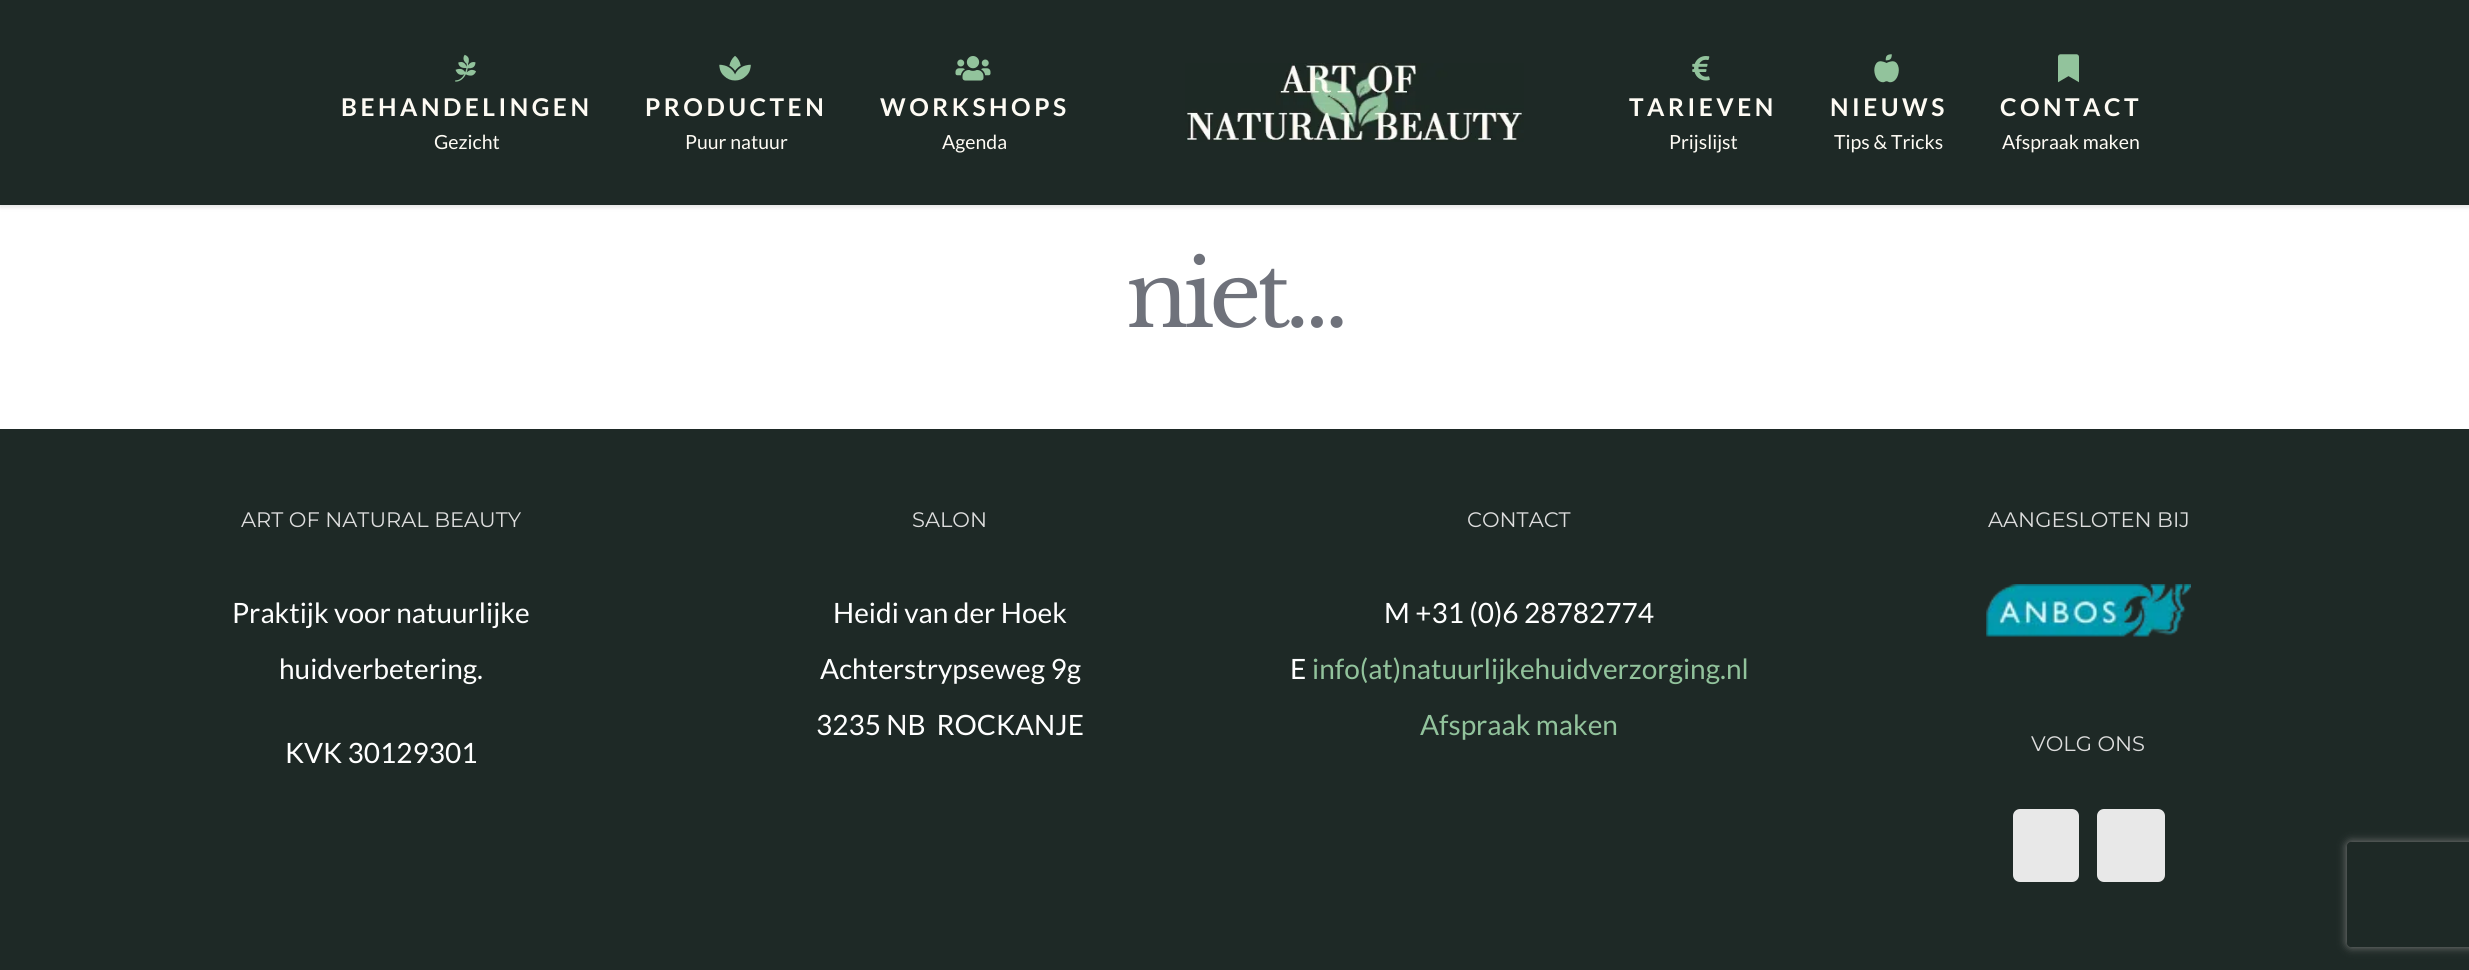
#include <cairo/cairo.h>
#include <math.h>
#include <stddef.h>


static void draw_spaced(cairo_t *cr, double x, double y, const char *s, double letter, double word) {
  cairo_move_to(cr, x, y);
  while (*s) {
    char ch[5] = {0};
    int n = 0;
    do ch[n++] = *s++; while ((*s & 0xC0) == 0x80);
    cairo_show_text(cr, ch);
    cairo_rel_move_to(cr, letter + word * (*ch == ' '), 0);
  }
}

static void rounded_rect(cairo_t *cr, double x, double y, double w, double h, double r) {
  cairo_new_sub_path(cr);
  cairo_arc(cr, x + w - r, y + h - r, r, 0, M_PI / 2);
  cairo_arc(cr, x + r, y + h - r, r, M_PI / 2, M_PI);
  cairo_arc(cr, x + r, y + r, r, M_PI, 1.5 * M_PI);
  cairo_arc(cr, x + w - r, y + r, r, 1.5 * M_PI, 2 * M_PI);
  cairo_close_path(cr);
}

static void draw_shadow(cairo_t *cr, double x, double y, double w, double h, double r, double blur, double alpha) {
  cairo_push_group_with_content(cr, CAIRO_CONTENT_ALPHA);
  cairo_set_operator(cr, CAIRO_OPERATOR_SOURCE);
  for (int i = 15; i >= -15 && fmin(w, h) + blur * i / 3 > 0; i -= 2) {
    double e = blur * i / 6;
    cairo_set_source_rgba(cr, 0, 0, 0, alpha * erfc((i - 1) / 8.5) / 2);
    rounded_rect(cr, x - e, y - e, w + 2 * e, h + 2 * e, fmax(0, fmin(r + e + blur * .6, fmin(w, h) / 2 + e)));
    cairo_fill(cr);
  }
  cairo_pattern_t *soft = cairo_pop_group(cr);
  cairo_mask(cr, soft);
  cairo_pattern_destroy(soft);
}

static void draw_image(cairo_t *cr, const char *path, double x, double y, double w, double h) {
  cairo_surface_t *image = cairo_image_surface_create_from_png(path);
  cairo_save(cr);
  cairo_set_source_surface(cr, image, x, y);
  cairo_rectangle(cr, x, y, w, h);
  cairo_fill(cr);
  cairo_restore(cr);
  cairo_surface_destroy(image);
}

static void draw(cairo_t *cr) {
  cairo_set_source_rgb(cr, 1, 1, 1);
  cairo_paint(cr);
  cairo_set_source_rgb(cr, 0, 0, 0);
  draw_shadow(cr, 0, 2, 2469, 205, 0, 2.5, 0.12);
  cairo_set_source_rgb(cr, 30 / 255.0, 41 / 255.0, 38 / 255.0);
  cairo_rectangle(cr, 0, 0, 2469, 205);
  cairo_fill(cr);
  draw_image(cr, "images/1.png", 455, 54, 21, 28);
  draw_image(cr, "images/2.png", 719, 56, 32, 25);
  draw_image(cr, "images/3.png", 955, 56, 36, 25);
  draw_image(cr, "images/4.png", 1185, 63, 339, 79);
  draw_image(cr, "images/5.png", 1692, 56, 18, 25);
  draw_image(cr, "images/6.png", 1874, 54, 25, 29);
  draw_image(cr, "images/7.png", 2058, 54, 21, 29);
  cairo_rectangle(cr, 0, 429, 2469, 541);
  cairo_fill(cr);
  draw_image(cr, "images/8.png", 1986, 584, 205, 53);
  cairo_set_source_rgb(cr, 232 / 255.0, 232 / 255.0, 232 / 255.0);
  rounded_rect(cr, 2014, 810, 64, 71, 6);
  cairo_fill_preserve(cr);
  cairo_stroke(cr);
  rounded_rect(cr, 2098, 810, 66, 71, 6);
  cairo_fill_preserve(cr);
  cairo_stroke(cr);
  cairo_save(cr);
  cairo_set_fill_rule(cr, CAIRO_FILL_RULE_EVEN_ODD);
  cairo_new_path(cr);
  cairo_move_to(cr, 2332, 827);
  cairo_line_to(cr, 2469, 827);
  cairo_line_to(cr, 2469, 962);
  cairo_line_to(cr, 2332, 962);
  cairo_close_path(cr);
  cairo_move_to(cr, 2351, 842);
  cairo_line_to(cr, 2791, 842);
  cairo_curve_to(cr, 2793, 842, 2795, 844, 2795, 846);
  cairo_line_to(cr, 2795, 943);
  cairo_curve_to(cr, 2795, 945, 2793, 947, 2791, 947);
  cairo_line_to(cr, 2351, 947);
  cairo_curve_to(cr, 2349, 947, 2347, 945, 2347, 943);
  cairo_line_to(cr, 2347, 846);
  cairo_curve_to(cr, 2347, 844, 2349, 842, 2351, 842);
  cairo_close_path(cr);
  cairo_clip(cr);
  cairo_set_source_rgb(cr, 128 / 255.0, 128 / 255.0, 128 / 255.0);
  draw_shadow(cr, 2347, 842, 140, 105, 4, 4.5, 1);
  cairo_restore(cr);
  cairo_select_font_face(cr, "Lato", CAIRO_FONT_SLANT_NORMAL, CAIRO_FONT_WEIGHT_BOLD);
  cairo_set_font_size(cr, 24.5);
  cairo_set_source_rgb(cr, 254 / 255.0, 251 / 255.0, 244 / 255.0);
  draw_spaced(cr, 341, 116, "BEHANDELINGEN", 3.5, 0);
  cairo_select_font_face(cr, "Lato", CAIRO_FONT_SLANT_NORMAL, CAIRO_FONT_WEIGHT_NORMAL);
  cairo_set_font_size(cr, 19.5);
  cairo_move_to(cr, 434, 149);
  cairo_show_text(cr, "Gezicht");
  cairo_select_font_face(cr, "Lato", CAIRO_FONT_SLANT_NORMAL, CAIRO_FONT_WEIGHT_BOLD);
  cairo_set_font_size(cr, 24.5);
  draw_spaced(cr, 645, 116, "PRODUCTEN", 3.5, 0);
  cairo_select_font_face(cr, "Lato", CAIRO_FONT_SLANT_NORMAL, CAIRO_FONT_WEIGHT_NORMAL);
  cairo_set_font_size(cr, 19.5);
  cairo_move_to(cr, 685, 149);
  cairo_show_text(cr, "Puur natuur");
  cairo_select_font_face(cr, "Lato", CAIRO_FONT_SLANT_NORMAL, CAIRO_FONT_WEIGHT_BOLD);
  cairo_set_font_size(cr, 24.5);
  draw_spaced(cr, 880, 116, "WORKSHOPS", 3.5, 0);
  cairo_select_font_face(cr, "Lato", CAIRO_FONT_SLANT_NORMAL, CAIRO_FONT_WEIGHT_NORMAL);
  cairo_set_font_size(cr, 19.5);
  cairo_move_to(cr, 942, 149);
  cairo_show_text(cr, "Agenda");
  cairo_select_font_face(cr, "Lato", CAIRO_FONT_SLANT_NORMAL, CAIRO_FONT_WEIGHT_BOLD);
  cairo_set_font_size(cr, 24.5);
  draw_spaced(cr, 1629, 116, "TARIEVEN", 3.5, 0);
  cairo_select_font_face(cr, "Lato", CAIRO_FONT_SLANT_NORMAL, CAIRO_FONT_WEIGHT_NORMAL);
  cairo_set_font_size(cr, 19.5);
  cairo_move_to(cr, 1669, 149);
  cairo_show_text(cr, "Prijslijst");
  cairo_select_font_face(cr, "Lato", CAIRO_FONT_SLANT_NORMAL, CAIRO_FONT_WEIGHT_BOLD);
  cairo_set_font_size(cr, 24.5);
  draw_spaced(cr, 1830, 116, "NIEUWS", 3.5, 0);
  cairo_select_font_face(cr, "Lato", CAIRO_FONT_SLANT_NORMAL, CAIRO_FONT_WEIGHT_NORMAL);
  cairo_set_font_size(cr, 19.5);
  cairo_move_to(cr, 1834, 149);
  cairo_show_text(cr, "Tips & Tricks");
  cairo_select_font_face(cr, "Lato", CAIRO_FONT_SLANT_NORMAL, CAIRO_FONT_WEIGHT_BOLD);
  cairo_set_font_size(cr, 24.5);
  draw_spaced(cr, 2000, 116, "CONTACT", 3.5, 0);
  cairo_select_font_face(cr, "Lato", CAIRO_FONT_SLANT_NORMAL, CAIRO_FONT_WEIGHT_NORMAL);
  cairo_set_font_size(cr, 19.5);
  cairo_move_to(cr, 2002, 149);
  cairo_show_text(cr, "Afspraak maken");
  cairo_select_font_face(cr, "Libre Baskerville", CAIRO_FONT_SLANT_NORMAL, CAIRO_FONT_WEIGHT_NORMAL);
  cairo_set_font_size(cr, 91);
  cairo_set_source_rgb(cr, 111 / 255.0, 114 / 255.0, 123 / 255.0);
  draw_spaced(cr, 1126, 327, "niet…", -5.25, 0);
  cairo_select_font_face(cr, "Montserrat Thin", CAIRO_FONT_SLANT_NORMAL, CAIRO_FONT_WEIGHT_NORMAL);
  cairo_set_font_size(cr, 21);
  cairo_set_source_rgb(cr, 221 / 255.0, 221 / 255.0, 221 / 255.0);
  cairo_move_to(cr, 241, 527);
  cairo_show_text(cr, "ART OF NATURAL BEAUTY");
  cairo_select_font_face(cr, "Lato", CAIRO_FONT_SLANT_NORMAL, CAIRO_FONT_WEIGHT_NORMAL);
  cairo_set_font_size(cr, 28);
  cairo_set_source_rgb(cr, 1, 1, 1);
  cairo_move_to(cr, 232, 623);
  cairo_show_text(cr, "Praktijk voor natuurlijke");
  cairo_move_to(cr, 279, 679);
  cairo_show_text(cr, "huidverbetering.");
  cairo_move_to(cr, 285, 763);
  cairo_show_text(cr, "KVK 30129301");
  cairo_select_font_face(cr, "Montserrat Thin", CAIRO_FONT_SLANT_NORMAL, CAIRO_FONT_WEIGHT_NORMAL);
  cairo_set_font_size(cr, 21);
  cairo_set_source_rgb(cr, 221 / 255.0, 221 / 255.0, 221 / 255.0);
  cairo_move_to(cr, 912, 527);
  cairo_show_text(cr, "SALON");
  cairo_select_font_face(cr, "Lato", CAIRO_FONT_SLANT_NORMAL, CAIRO_FONT_WEIGHT_NORMAL);
  cairo_set_font_size(cr, 28);
  cairo_set_source_rgb(cr, 1, 1, 1);
  cairo_move_to(cr, 833, 623);
  cairo_show_text(cr, "Heidi van der Hoek");
  cairo_move_to(cr, 820, 679);
  cairo_show_text(cr, "Achterstrypseweg 9g");
  cairo_move_to(cr, 816, 735);
  cairo_show_text(cr, "3235 NB  ROCKANJE");
  cairo_select_font_face(cr, "Montserrat Thin", CAIRO_FONT_SLANT_NORMAL, CAIRO_FONT_WEIGHT_NORMAL);
  cairo_set_font_size(cr, 21);
  cairo_set_source_rgb(cr, 221 / 255.0, 221 / 255.0, 221 / 255.0);
  cairo_move_to(cr, 1467, 527);
  cairo_show_text(cr, "CONTACT");
  cairo_select_font_face(cr, "Lato", CAIRO_FONT_SLANT_NORMAL, CAIRO_FONT_WEIGHT_NORMAL);
  cairo_set_font_size(cr, 28);
  cairo_set_source_rgb(cr, 1, 1, 1);
  cairo_move_to(cr, 1384, 623);
  cairo_show_text(cr, "M +31 (0)6 28782774");
  cairo_move_to(cr, 1290, 679);
  cairo_show_text(cr, "E");
  cairo_set_source_rgb(cr, 146 / 255.0, 195 / 255.0, 156 / 255.0);
  cairo_move_to(cr, 1312, 679);
  cairo_show_text(cr, "info(at)natuurlijkehuidverzorging.nl");
  cairo_move_to(cr, 1420, 735);
  cairo_show_text(cr, "Afspraak maken");
  cairo_select_font_face(cr, "Montserrat Thin", CAIRO_FONT_SLANT_NORMAL, CAIRO_FONT_WEIGHT_NORMAL);
  cairo_set_font_size(cr, 21);
  cairo_set_source_rgb(cr, 221 / 255.0, 221 / 255.0, 221 / 255.0);
  cairo_move_to(cr, 1988, 527);
  cairo_show_text(cr, "AANGESLOTEN BIJ");
  cairo_move_to(cr, 2031, 751);
  cairo_show_text(cr, "VOLG ONS");
}

int main(void) {
  cairo_surface_t *surface = cairo_image_surface_create(CAIRO_FORMAT_RGB24, 2469, 970);
  cairo_t *cr = cairo_create(surface);
  cairo_font_options_t *options = cairo_font_options_create();
  cairo_font_options_set_hint_metrics(options, CAIRO_HINT_METRICS_OFF);
  cairo_font_options_set_hint_style(options, CAIRO_HINT_STYLE_NONE);
  cairo_set_font_options(cr, options);
  cairo_set_miter_limit(cr, 4);
  draw(cr);
  cairo_surface_write_to_png(surface, "out.png");
  cairo_font_options_destroy(options);
  cairo_destroy(cr);
  cairo_surface_destroy(surface);
  return 0;
}
